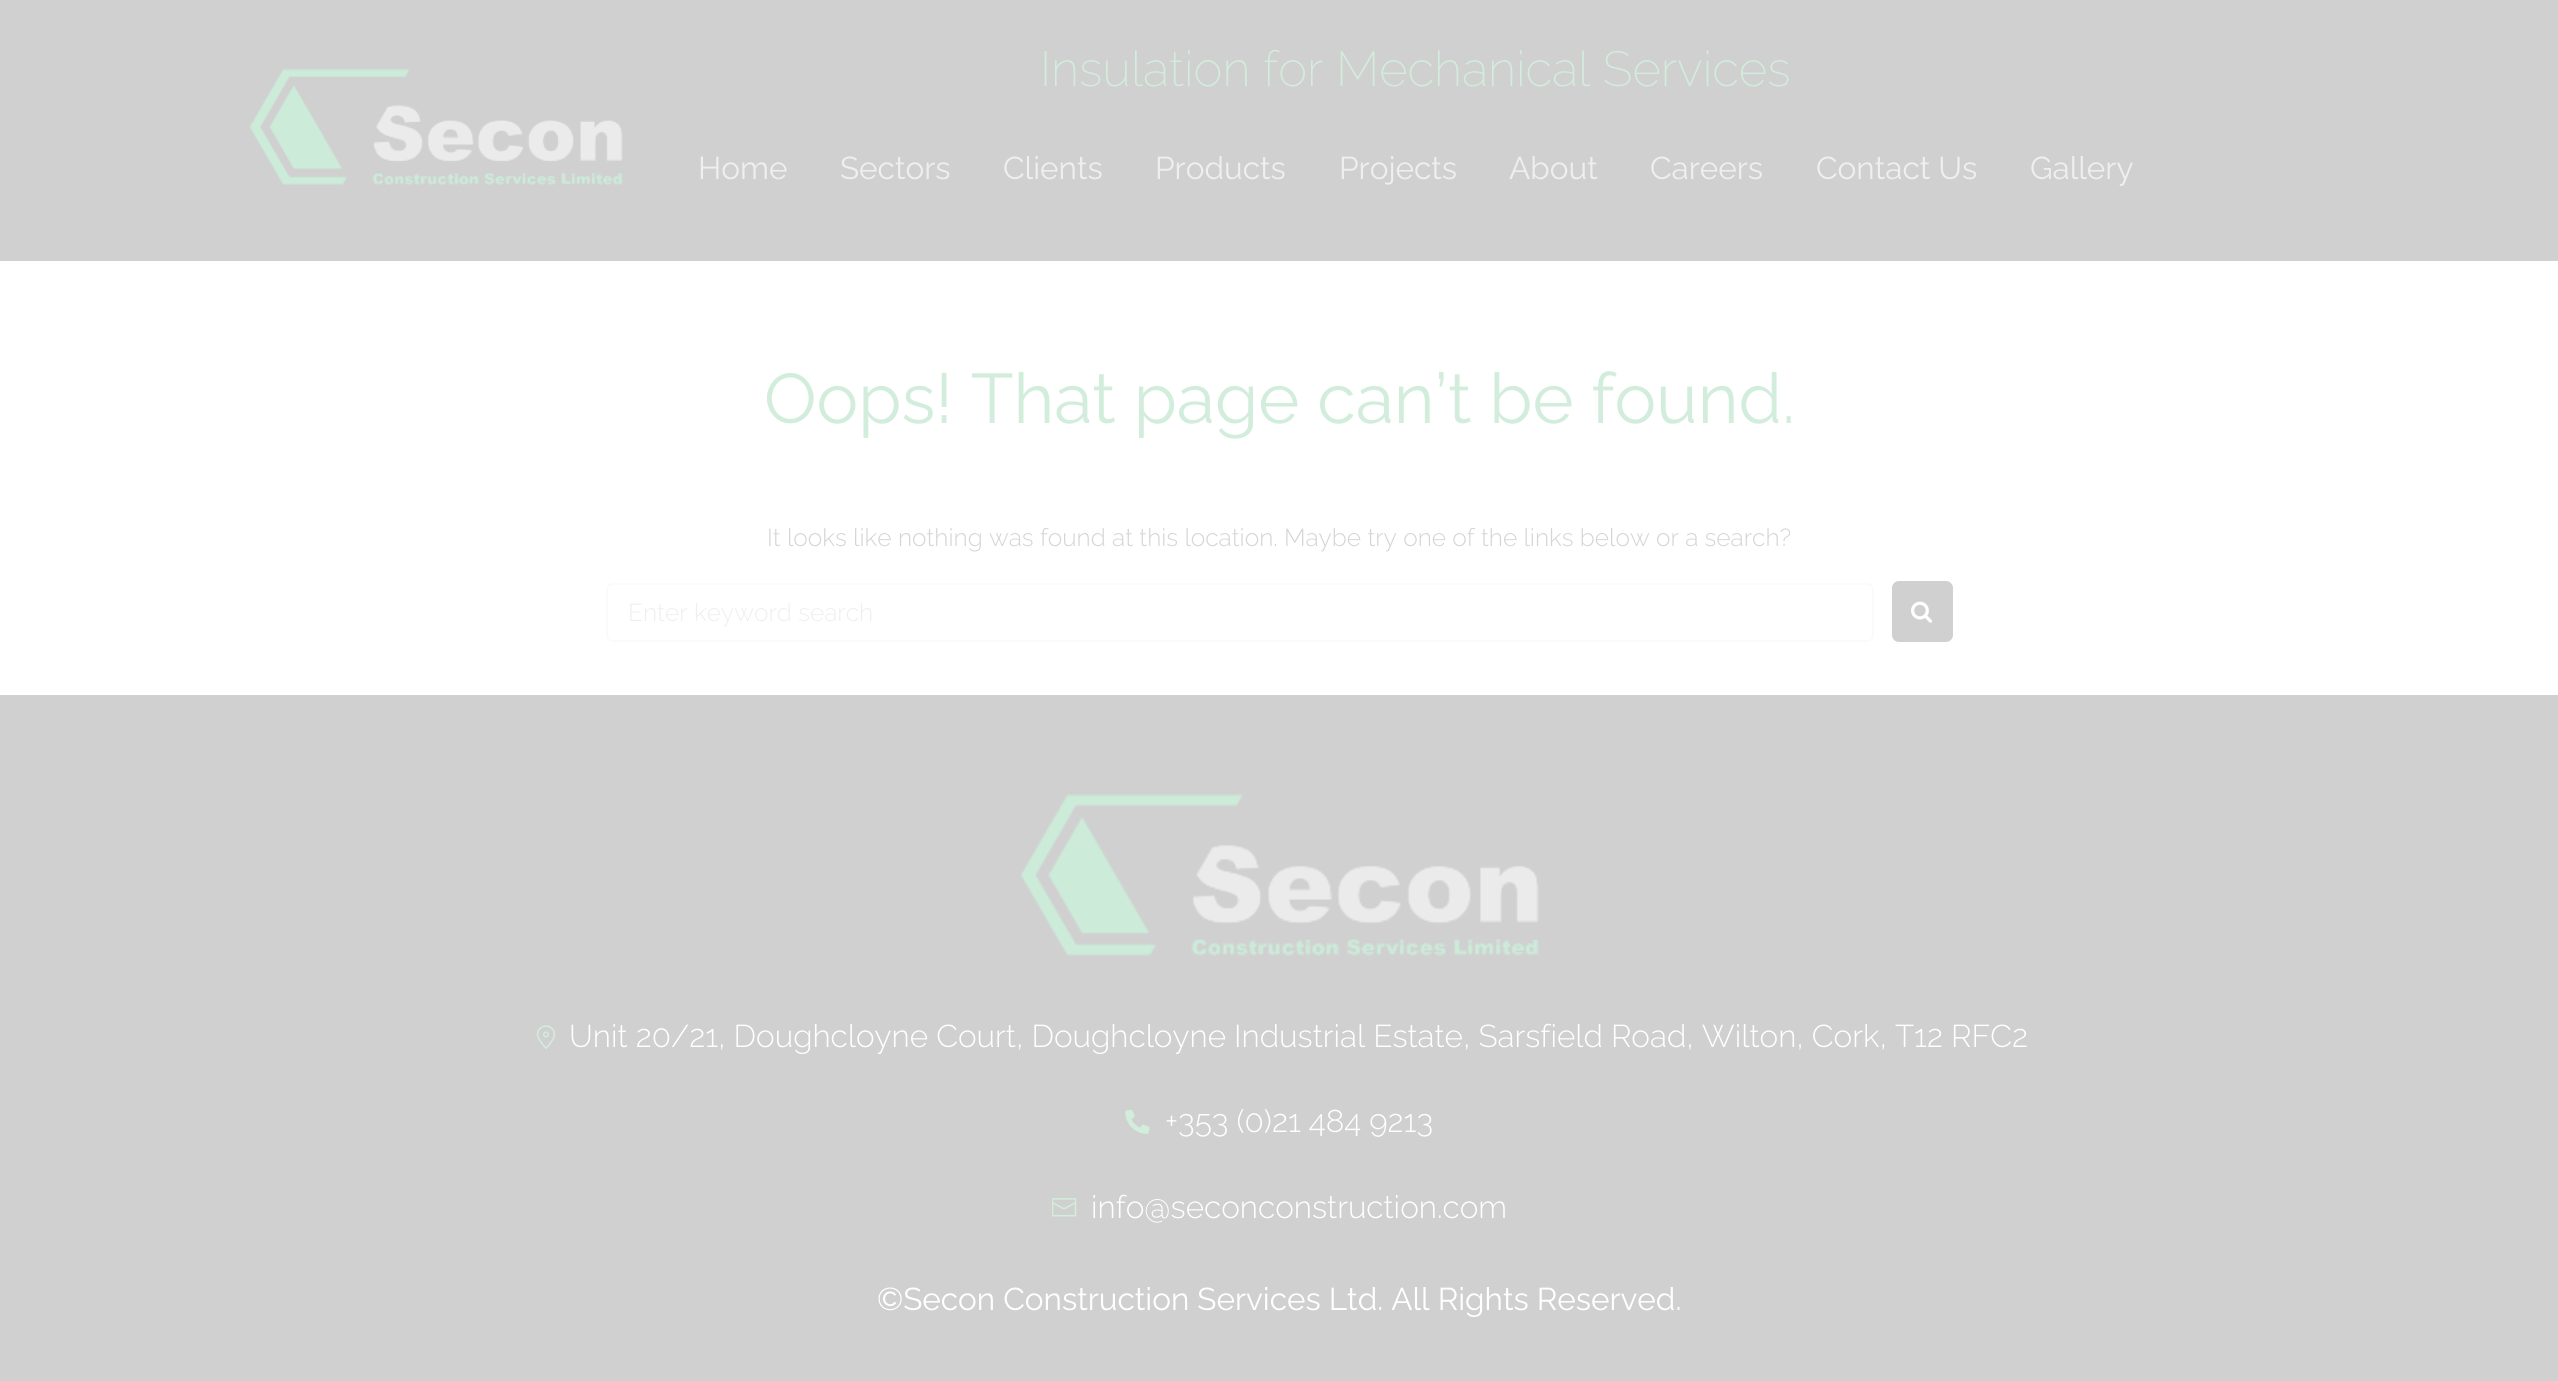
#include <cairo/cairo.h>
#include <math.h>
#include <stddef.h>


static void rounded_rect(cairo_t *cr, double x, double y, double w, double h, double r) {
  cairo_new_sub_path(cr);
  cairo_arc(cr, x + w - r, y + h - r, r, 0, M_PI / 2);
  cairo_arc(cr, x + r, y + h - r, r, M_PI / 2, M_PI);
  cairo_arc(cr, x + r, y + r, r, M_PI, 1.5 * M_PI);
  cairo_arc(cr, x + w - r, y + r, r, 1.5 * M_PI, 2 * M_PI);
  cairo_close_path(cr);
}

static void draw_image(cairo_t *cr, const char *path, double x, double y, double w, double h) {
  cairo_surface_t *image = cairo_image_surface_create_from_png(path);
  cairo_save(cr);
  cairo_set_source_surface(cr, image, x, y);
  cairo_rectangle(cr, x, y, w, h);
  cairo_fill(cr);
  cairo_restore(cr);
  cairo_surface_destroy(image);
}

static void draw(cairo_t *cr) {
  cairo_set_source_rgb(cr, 1, 1, 1);
  cairo_paint(cr);
  cairo_set_source_rgb(cr, 208 / 255.0, 208 / 255.0, 209 / 255.0);
  cairo_rectangle(cr, 0, 0, 2558, 261);
  cairo_fill(cr);
  draw_image(cr, "images/1.png", 249, 68, 374, 117);
  rounded_rect(cr, 607, 584, 1266, 57, 6);
  cairo_set_source_rgb(cr, 251 / 255.0, 251 / 255.0, 251 / 255.0);
  cairo_stroke(cr);
  cairo_set_source_rgb(cr, 208 / 255.0, 208 / 255.0, 209 / 255.0);
  rounded_rect(cr, 1892, 581, 61, 61, 7);
  cairo_fill(cr);
  draw_image(cr, "images/2.png", 1911, 601, 22, 22);
  cairo_rectangle(cr, 0, 695, 2558, 686);
  cairo_fill(cr);
  draw_image(cr, "images/3.png", 1020, 794, 519, 162);
  draw_image(cr, "images/4.png", 536, 1025, 20, 24);
  draw_image(cr, "images/5.png", 1125, 1110, 25, 24);
  draw_image(cr, "images/6.png", 1052, 1198, 25, 19);
  cairo_select_font_face(cr, "Raleway ExtraLight", CAIRO_FONT_SLANT_NORMAL, CAIRO_FONT_WEIGHT_NORMAL);
  cairo_set_font_size(cr, 49);
  cairo_set_source_rgb(cr, 210 / 255.0, 237 / 255.0, 220 / 255.0);
  cairo_move_to(cr, 1040, 86);
  cairo_show_text(cr, "Insulation for Mechanical Services");
  cairo_select_font_face(cr, "Raleway", CAIRO_FONT_SLANT_NORMAL, CAIRO_FONT_WEIGHT_NORMAL);
  cairo_set_font_size(cr, 31.5);
  cairo_set_source_rgb(cr, 239 / 255.0, 239 / 255.0, 239 / 255.0);
  cairo_move_to(cr, 698, 179);
  cairo_show_text(cr, "Home");
  cairo_move_to(cr, 840, 179);
  cairo_show_text(cr, "Sectors");
  cairo_move_to(cr, 1003, 179);
  cairo_show_text(cr, "Clients");
  cairo_move_to(cr, 1155, 179);
  cairo_show_text(cr, "Products");
  cairo_move_to(cr, 1339, 179);
  cairo_show_text(cr, "Projects");
  cairo_move_to(cr, 1509, 179);
  cairo_show_text(cr, "About");
  cairo_move_to(cr, 1650, 179);
  cairo_show_text(cr, "Careers");
  cairo_move_to(cr, 1816, 179);
  cairo_show_text(cr, "Contact Us");
  cairo_move_to(cr, 2030, 179);
  cairo_show_text(cr, "Gallery");
  cairo_set_font_size(cr, 70);
  cairo_set_source_rgb(cr, 210 / 255.0, 237 / 255.0, 220 / 255.0);
  cairo_move_to(cr, 764, 423);
  cairo_show_text(cr, "Oops! That page can’t be found.");
  cairo_select_font_face(cr, "Raleway Light", CAIRO_FONT_SLANT_NORMAL, CAIRO_FONT_WEIGHT_NORMAL);
  cairo_set_font_size(cr, 24.5);
  cairo_set_source_rgb(cr, 213 / 255.0, 213 / 255.0, 213 / 255.0);
  cairo_move_to(cr, 767, 546);
  cairo_show_text(cr, "It looks like nothing was found at this location. Maybe try one of the links below or a search?");
  cairo_set_source_rgb(cr, 239 / 255.0, 239 / 255.0, 239 / 255.0);
  cairo_move_to(cr, 628, 621);
  cairo_show_text(cr, "Enter keyword search");
  cairo_set_font_size(cr, 31.5);
  cairo_set_source_rgb(cr, 1, 1, 1);
  cairo_move_to(cr, 569, 1047);
  cairo_show_text(cr, "Unit 20/21, Doughcloyne Court, Doughcloyne Industrial Estate, Sarsfield Road, Wilton, Cork, T12 RFC2");
  cairo_move_to(cr, 1165, 1132);
  cairo_show_text(cr, "+353 (0)21 484 9213");
  cairo_move_to(cr, 1091, 1218);
  cairo_show_text(cr, "info@seconconstruction.com");
  cairo_select_font_face(cr, "Raleway", CAIRO_FONT_SLANT_NORMAL, CAIRO_FONT_WEIGHT_NORMAL);
  cairo_move_to(cr, 877, 1310);
  cairo_show_text(cr, "©Secon Construction Services Ltd. All Rights Reserved.");
}

int main(void) {
  cairo_surface_t *surface = cairo_image_surface_create(CAIRO_FORMAT_RGB24, 2558, 1381);
  cairo_t *cr = cairo_create(surface);
  cairo_font_options_t *options = cairo_font_options_create();
  cairo_font_options_set_hint_metrics(options, CAIRO_HINT_METRICS_OFF);
  cairo_font_options_set_hint_style(options, CAIRO_HINT_STYLE_NONE);
  cairo_set_font_options(cr, options);
  cairo_set_miter_limit(cr, 4);
  draw(cr);
  cairo_surface_write_to_png(surface, "out.png");
  cairo_font_options_destroy(options);
  cairo_destroy(cr);
  cairo_surface_destroy(surface);
  return 0;
}
